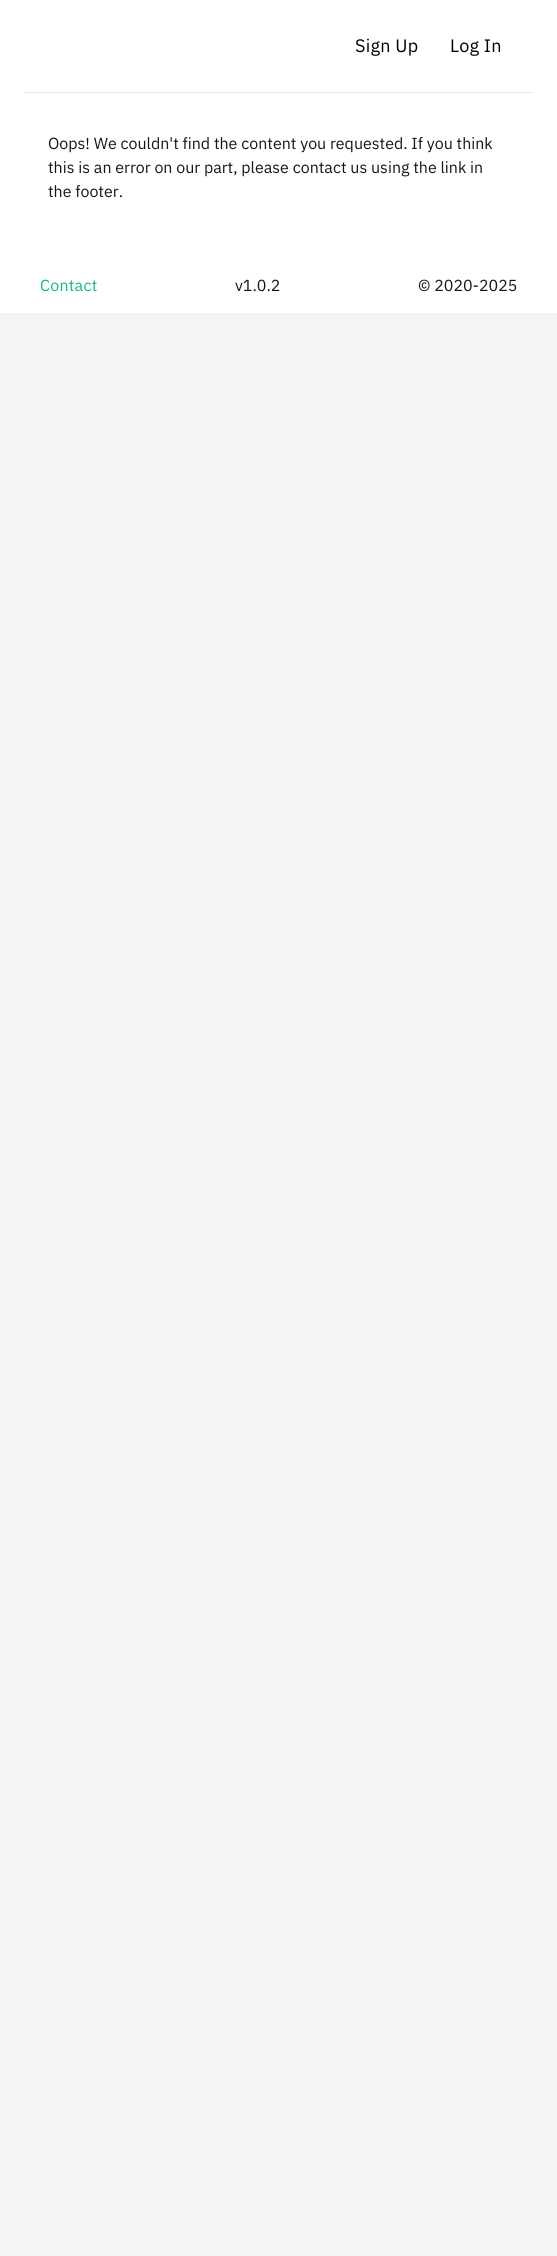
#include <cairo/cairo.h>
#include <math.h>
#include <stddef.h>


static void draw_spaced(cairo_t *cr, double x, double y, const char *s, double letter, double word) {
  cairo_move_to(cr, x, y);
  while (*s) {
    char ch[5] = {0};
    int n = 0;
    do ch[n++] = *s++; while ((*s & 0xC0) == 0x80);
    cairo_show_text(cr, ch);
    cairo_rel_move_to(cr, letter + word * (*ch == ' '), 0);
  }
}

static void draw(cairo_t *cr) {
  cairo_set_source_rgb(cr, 244 / 255.0, 244 / 255.0, 244 / 255.0);
  cairo_paint(cr);
  cairo_set_source_rgb(cr, 1, 1, 1);
  cairo_rectangle(cr, 0, 0, 557, 313);
  cairo_fill(cr);
  cairo_set_source_rgb(cr, 229 / 255.0, 231 / 255.0, 235 / 255.0);
  cairo_rectangle(cr, 24, 92, 509, 1);
  cairo_fill(cr);
  cairo_select_font_face(cr, "IBM Plex Sans", CAIRO_FONT_SLANT_NORMAL, CAIRO_FONT_WEIGHT_NORMAL);
  cairo_set_font_size(cr, 18);
  cairo_set_source_rgb(cr, 0, 0, 0);
  draw_spaced(cr, 355, 52, "Sign Up", 0.25, 0);
  draw_spaced(cr, 450, 52, "Log In", 0.25, 0);
  cairo_set_font_size(cr, 16);
  cairo_set_source_rgb(cr, 22 / 255.0, 22 / 255.0, 22 / 255.0);
  cairo_move_to(cr, 48, 149);
  cairo_show_text(cr, "Oops! We couldn't find the content you requested. If you think");
  cairo_move_to(cr, 48, 173);
  cairo_show_text(cr, "this is an error on our part, please contact us using the link in");
  cairo_move_to(cr, 48, 197);
  cairo_show_text(cr, "the footer.");
  cairo_set_source_rgb(cr, 16 / 255.0, 185 / 255.0, 129 / 255.0);
  draw_spaced(cr, 40, 291, "Contact", 0.25, 0);
  cairo_set_source_rgb(cr, 22 / 255.0, 22 / 255.0, 22 / 255.0);
  cairo_move_to(cr, 235, 291);
  cairo_show_text(cr, "v1.0.2");
  cairo_move_to(cr, 418, 291);
  cairo_show_text(cr, "© 2020-2025");
}

int main(void) {
  cairo_surface_t *surface = cairo_image_surface_create(CAIRO_FORMAT_RGB24, 557, 2256);
  cairo_t *cr = cairo_create(surface);
  cairo_font_options_t *options = cairo_font_options_create();
  cairo_font_options_set_hint_metrics(options, CAIRO_HINT_METRICS_OFF);
  cairo_font_options_set_hint_style(options, CAIRO_HINT_STYLE_NONE);
  cairo_set_font_options(cr, options);
  cairo_set_miter_limit(cr, 4);
  draw(cr);
  cairo_surface_write_to_png(surface, "out.png");
  cairo_font_options_destroy(options);
  cairo_destroy(cr);
  cairo_surface_destroy(surface);
  return 0;
}
